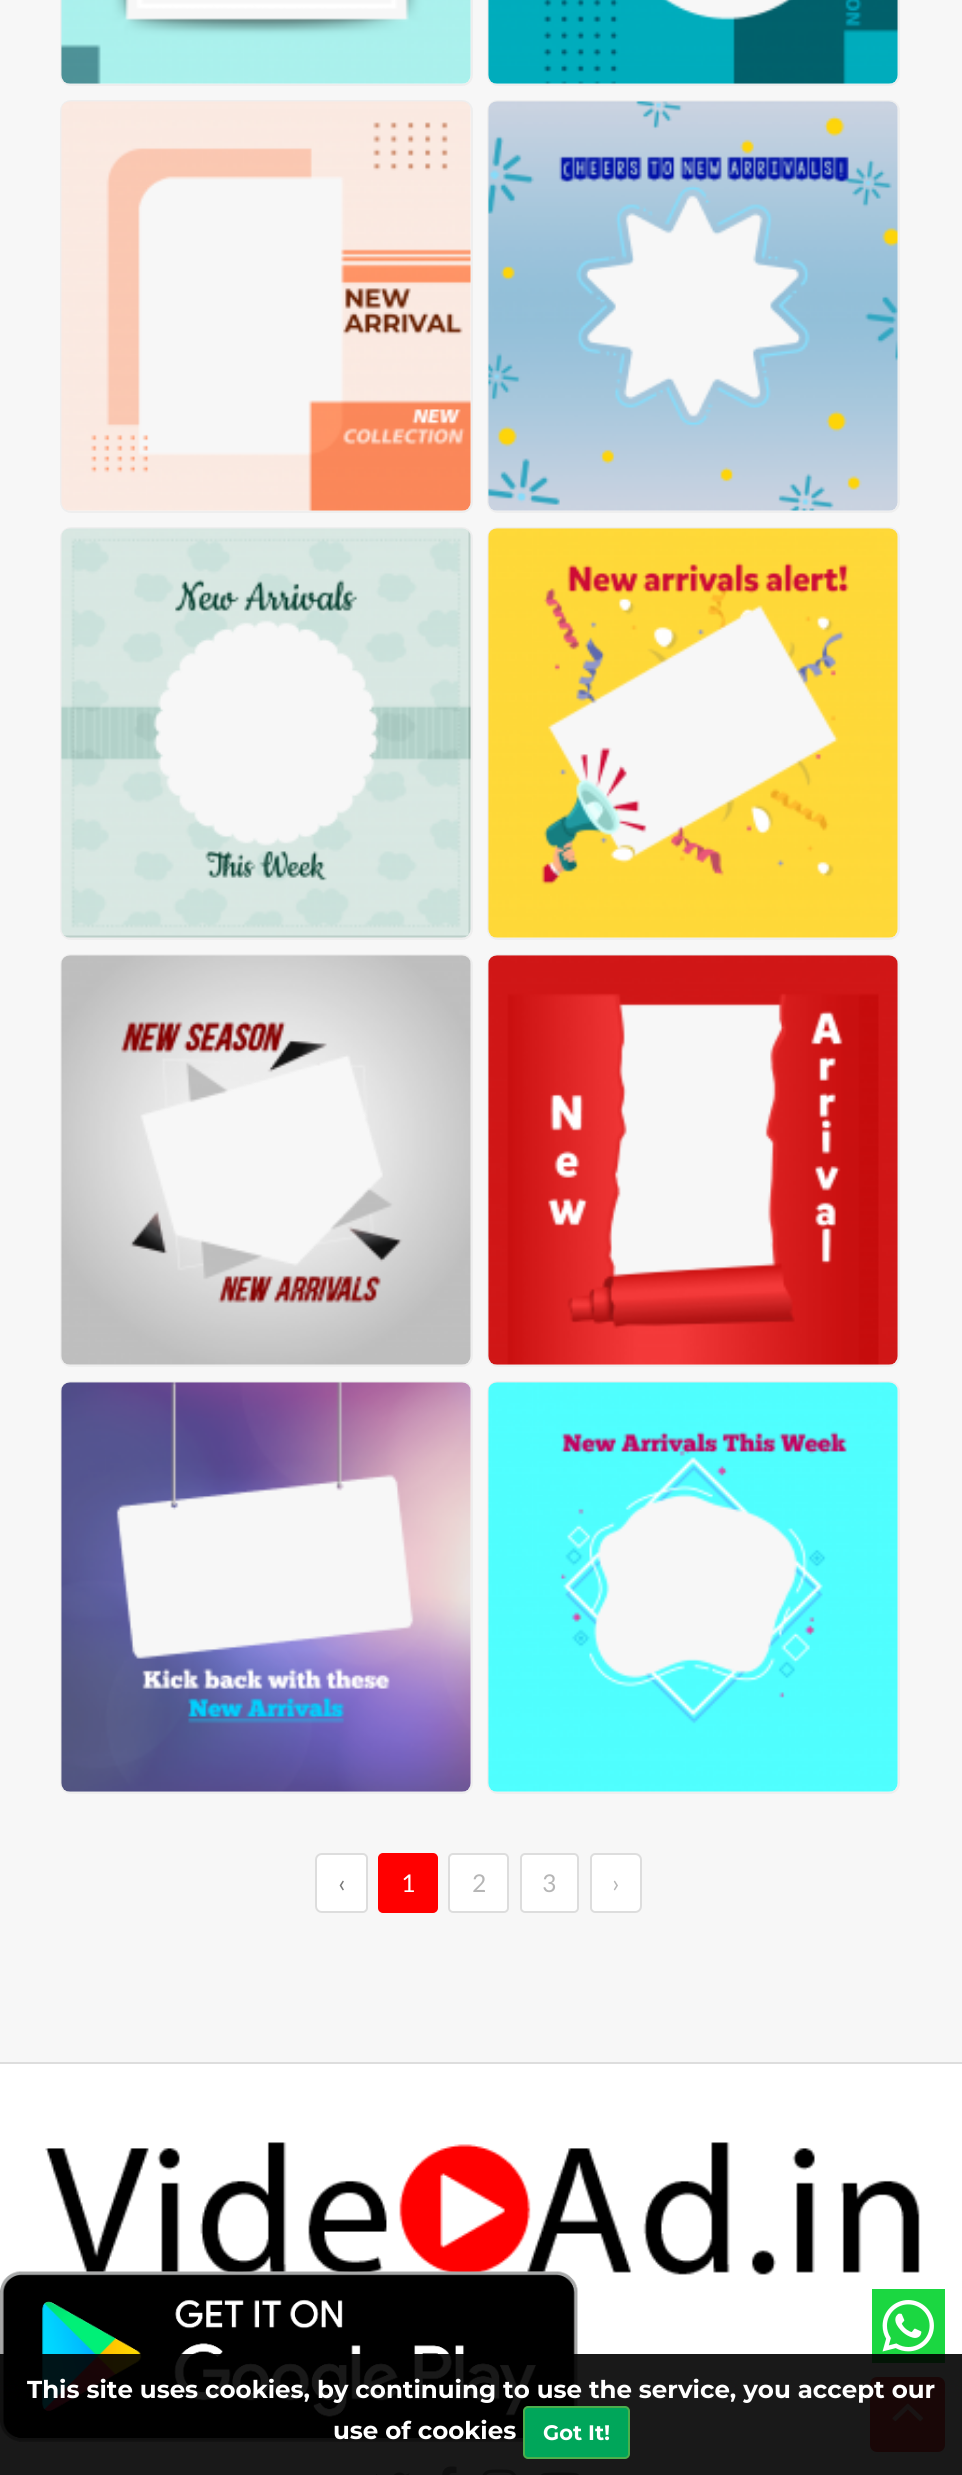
#include <cairo/cairo.h>
#include <math.h>
#include <stddef.h>


static void rounded_rect(cairo_t *cr, double x, double y, double w, double h, double r) {
  cairo_new_sub_path(cr);
  cairo_arc(cr, x + w - r, y + h - r, r, 0, M_PI / 2);
  cairo_arc(cr, x + r, y + h - r, r, M_PI / 2, M_PI);
  cairo_arc(cr, x + r, y + r, r, M_PI, 1.5 * M_PI);
  cairo_arc(cr, x + w - r, y + r, r, 1.5 * M_PI, 2 * M_PI);
  cairo_close_path(cr);
}

static void draw_image(cairo_t *cr, const char *path, double x, double y, double w, double h) {
  cairo_surface_t *image = cairo_image_surface_create_from_png(path);
  cairo_save(cr);
  cairo_set_source_surface(cr, image, x, y);
  cairo_rectangle(cr, x, y, w, h);
  cairo_fill(cr);
  cairo_restore(cr);
  cairo_surface_destroy(image);
}

static void draw(cairo_t *cr) {
  cairo_set_source_rgb(cr, 247 / 255.0, 247 / 255.0, 247 / 255.0);
  cairo_paint(cr);
  rounded_rect(cr, 61, -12, 411, 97, 10);
  cairo_set_source_rgb(cr, 238 / 255.0, 238 / 255.0, 238 / 255.0);
  cairo_stroke(cr);
  draw_image(cr, "images/1.png", 61, 0, 410, 84);
  rounded_rect(cr, 488, -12, 411, 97, 10);
  cairo_stroke(cr);
  draw_image(cr, "images/2.png", 488, 0, 410, 84);
  rounded_rect(cr, 61, 101, 411, 411, 10);
  cairo_stroke(cr);
  draw_image(cr, "images/3.png", 61, 101, 410, 410);
  rounded_rect(cr, 488, 101, 411, 411, 10);
  cairo_stroke(cr);
  draw_image(cr, "images/4.png", 488, 101, 410, 410);
  rounded_rect(cr, 61, 528, 411, 411, 10);
  cairo_stroke(cr);
  draw_image(cr, "images/5.png", 61, 528, 410, 410);
  rounded_rect(cr, 488, 528, 411, 411, 10);
  cairo_stroke(cr);
  draw_image(cr, "images/6.png", 488, 528, 410, 410);
  rounded_rect(cr, 61, 955, 411, 411, 10);
  cairo_stroke(cr);
  draw_image(cr, "images/7.png", 61, 955, 410, 410);
  rounded_rect(cr, 488, 955, 411, 411, 10);
  cairo_stroke(cr);
  draw_image(cr, "images/8.png", 488, 955, 410, 410);
  rounded_rect(cr, 61, 1382, 411, 411, 10);
  cairo_stroke(cr);
  draw_image(cr, "images/9.png", 61, 1382, 410, 410);
  rounded_rect(cr, 488, 1382, 411, 411, 10);
  cairo_stroke(cr);
  draw_image(cr, "images/10.png", 488, 1382, 410, 410);
  cairo_set_source_rgb(cr, 1, 1, 1);
  cairo_new_path(cr);
  cairo_move_to(cr, 322, 1854);
  cairo_line_to(cr, 363, 1854);
  cairo_curve_to(cr, 365, 1854, 367, 1856, 367, 1858);
  cairo_line_to(cr, 367, 1908);
  cairo_curve_to(cr, 367, 1910, 365, 1912, 363, 1912);
  cairo_line_to(cr, 322, 1912);
  cairo_curve_to(cr, 318.5, 1912, 316, 1909.5, 316, 1906);
  cairo_line_to(cr, 316, 1860);
  cairo_curve_to(cr, 316, 1856.5, 318.5, 1854, 322, 1854);
  cairo_close_path(cr);
  cairo_fill_preserve(cr);
  cairo_set_source_rgb(cr, 221 / 255.0, 221 / 255.0, 221 / 255.0);
  cairo_stroke(cr);
  cairo_set_source_rgb(cr, 1, 0, 0);
  rounded_rect(cr, 379, 1854, 58, 58, 4);
  cairo_fill_preserve(cr);
  cairo_stroke(cr);
  cairo_set_source_rgb(cr, 1, 1, 1);
  rounded_rect(cr, 449, 1854, 59, 58, 4);
  cairo_fill_preserve(cr);
  cairo_set_source_rgb(cr, 221 / 255.0, 221 / 255.0, 221 / 255.0);
  cairo_stroke(cr);
  cairo_set_source_rgb(cr, 1, 1, 1);
  rounded_rect(cr, 521, 1854, 57, 58, 4);
  cairo_fill_preserve(cr);
  cairo_set_source_rgb(cr, 221 / 255.0, 221 / 255.0, 221 / 255.0);
  cairo_stroke(cr);
  cairo_set_source_rgb(cr, 1, 1, 1);
  cairo_new_path(cr);
  cairo_move_to(cr, 595, 1854);
  cairo_line_to(cr, 635, 1854);
  cairo_curve_to(cr, 638.5, 1854, 641, 1856.5, 641, 1860);
  cairo_line_to(cr, 641, 1906);
  cairo_curve_to(cr, 641, 1909.5, 638.5, 1912, 635, 1912);
  cairo_line_to(cr, 595, 1912);
  cairo_curve_to(cr, 593, 1912, 591, 1910, 591, 1908);
  cairo_line_to(cr, 591, 1858);
  cairo_curve_to(cr, 591, 1856, 593, 1854, 595, 1854);
  cairo_close_path(cr);
  cairo_fill_preserve(cr);
  cairo_set_source_rgb(cr, 221 / 255.0, 221 / 255.0, 221 / 255.0);
  cairo_stroke(cr);
  cairo_set_source_rgb(cr, 1, 1, 1);
  cairo_rectangle(cr, 0, 2064, 962, 411);
  cairo_fill(cr);
  cairo_set_source_rgb(cr, 221 / 255.0, 221 / 255.0, 221 / 255.0);
  cairo_rectangle(cr, 0, 2062, 962, 2);
  cairo_fill(cr);
  draw_image(cr, "images/11.png", 45, 2142, 875, 133);
  draw_image(cr, "images/12.png", 376, 2472, 34, 3);
  draw_image(cr, "images/13.png", 442, 2466, 15, 9);
  draw_image(cr, "images/14.png", 482, 2469, 34, 6);
  draw_image(cr, "images/15.png", 541, 2472, 38, 3);
  draw_image(cr, "images/16.png", 0, 2271, 578, 171);
  draw_image(cr, "images/17.png", 872, 2289, 73, 74);
  cairo_set_source_rgba(cr, 1, 0, 0, 0.7);
  rounded_rect(cr, 870, 2377, 75, 75, 7);
  cairo_fill(cr);
  draw_image(cr, "images/18.png", 892, 2403, 32, 19);
  cairo_set_source_rgba(cr, 0, 0, 0, 0.9);
  cairo_rectangle(cr, 0, 2354, 962, 121);
  cairo_fill(cr);
  cairo_set_source_rgb(cr, 0, 166 / 255.0, 90 / 255.0);
  rounded_rect(cr, 524, 2407, 105, 51, 4);
  cairo_fill_preserve(cr);
  cairo_set_source_rgb(cr, 76 / 255.0, 174 / 255.0, 76 / 255.0);
  cairo_stroke(cr);
  cairo_select_font_face(cr, "Lato", CAIRO_FONT_SLANT_NORMAL, CAIRO_FONT_WEIGHT_NORMAL);
  cairo_set_font_size(cr, 24.5);
  cairo_set_source_rgb(cr, 119 / 255.0, 119 / 255.0, 119 / 255.0);
  cairo_move_to(cr, 338, 1892);
  cairo_show_text(cr, "‹");
  cairo_set_source_rgb(cr, 1, 1, 1);
  cairo_move_to(cr, 401, 1892);
  cairo_show_text(cr, "1");
  cairo_set_source_rgb(cr, 182 / 255.0, 182 / 255.0, 182 / 255.0);
  cairo_move_to(cr, 472, 1892);
  cairo_show_text(cr, "2");
  cairo_move_to(cr, 542, 1892);
  cairo_show_text(cr, "3");
  cairo_move_to(cr, 612, 1892);
  cairo_show_text(cr, "›");
  cairo_select_font_face(cr, "Montserrat Thin", CAIRO_FONT_SLANT_NORMAL, CAIRO_FONT_WEIGHT_NORMAL);
  cairo_set_source_rgb(cr, 1, 1, 1);
  cairo_move_to(cr, 27, 2398);
  cairo_show_text(cr, "This site uses cookies, by continuing to use the service, you accept our");
  cairo_move_to(cr, 333, 2439);
  cairo_show_text(cr, "use of cookies");
  cairo_set_font_size(cr, 21);
  cairo_move_to(cr, 543, 2440);
  cairo_show_text(cr, "Got It!");
}

int main(void) {
  cairo_surface_t *surface = cairo_image_surface_create(CAIRO_FORMAT_RGB24, 962, 2475);
  cairo_t *cr = cairo_create(surface);
  cairo_font_options_t *options = cairo_font_options_create();
  cairo_font_options_set_hint_metrics(options, CAIRO_HINT_METRICS_OFF);
  cairo_font_options_set_hint_style(options, CAIRO_HINT_STYLE_NONE);
  cairo_set_font_options(cr, options);
  cairo_set_miter_limit(cr, 4);
  draw(cr);
  cairo_surface_write_to_png(surface, "out.png");
  cairo_font_options_destroy(options);
  cairo_destroy(cr);
  cairo_surface_destroy(surface);
  return 0;
}
